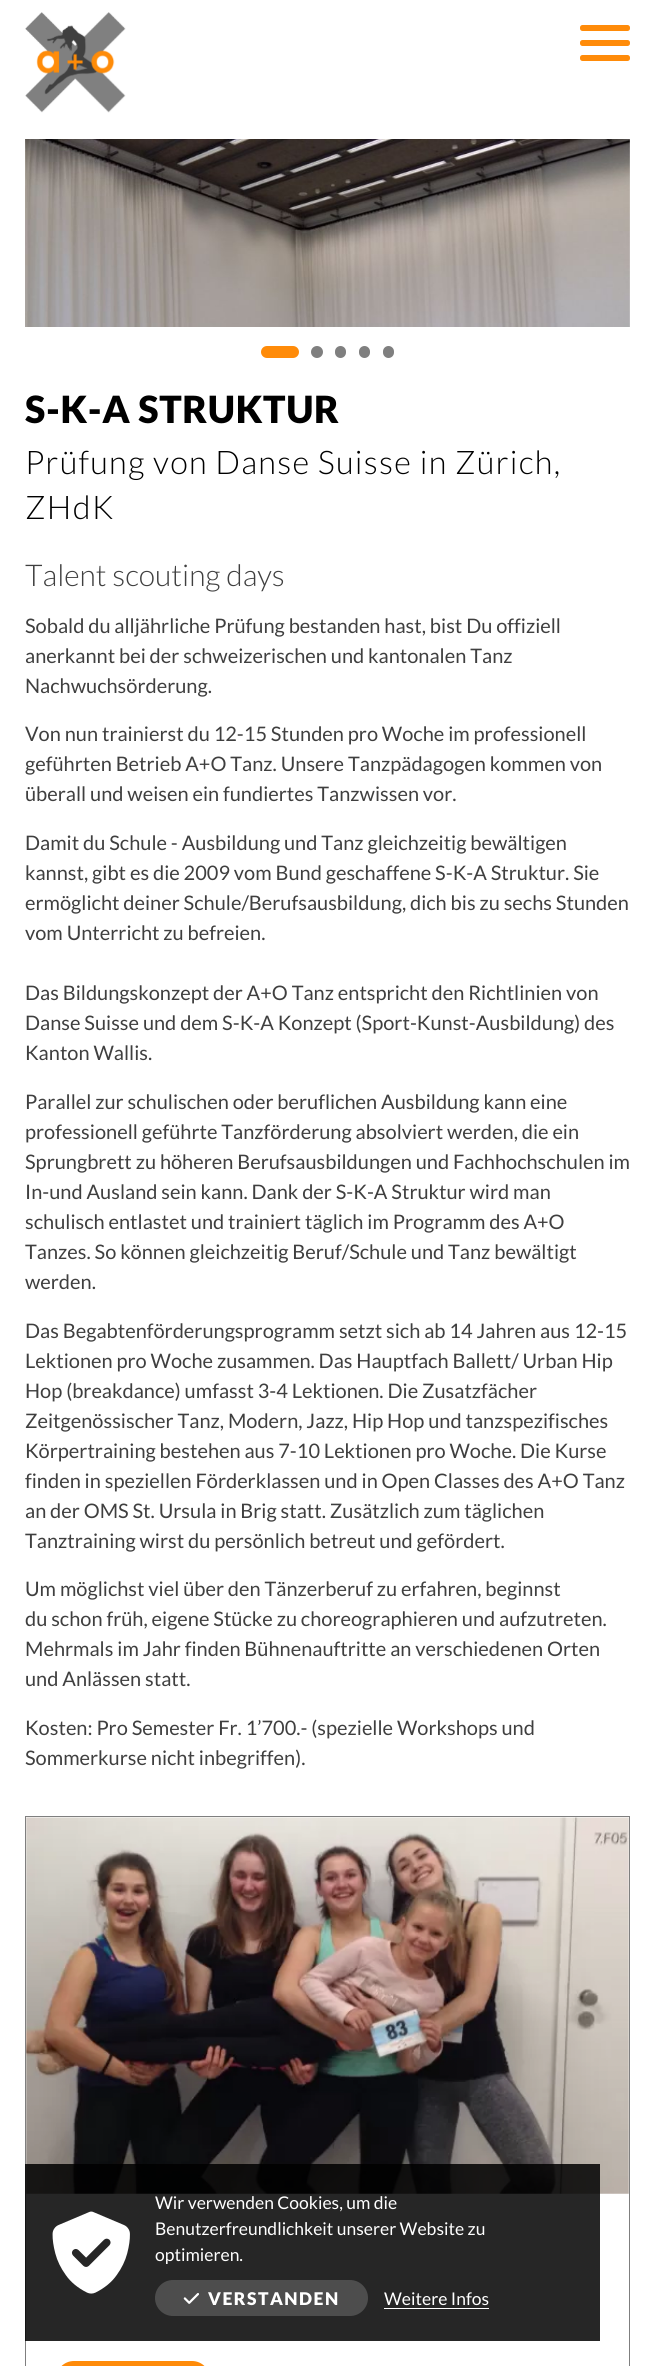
#include <cairo/cairo.h>
#include <math.h>
#include <stddef.h>


static void draw_spaced(cairo_t *cr, double x, double y, const char *s, double letter, double word) {
  cairo_move_to(cr, x, y);
  while (*s) {
    char ch[5] = {0};
    int n = 0;
    do ch[n++] = *s++; while ((*s & 0xC0) == 0x80);
    cairo_show_text(cr, ch);
    cairo_rel_move_to(cr, letter + word * (*ch == ' '), 0);
  }
}

static void rounded_rect(cairo_t *cr, double x, double y, double w, double h, double r) {
  cairo_new_sub_path(cr);
  cairo_arc(cr, x + w - r, y + h - r, r, 0, M_PI / 2);
  cairo_arc(cr, x + r, y + h - r, r, M_PI / 2, M_PI);
  cairo_arc(cr, x + r, y + r, r, M_PI, 1.5 * M_PI);
  cairo_arc(cr, x + w - r, y + r, r, 1.5 * M_PI, 2 * M_PI);
  cairo_close_path(cr);
}

static void draw_image(cairo_t *cr, const char *path, double x, double y, double w, double h) {
  cairo_surface_t *image = cairo_image_surface_create_from_png(path);
  cairo_save(cr);
  cairo_set_source_surface(cr, image, x, y);
  cairo_rectangle(cr, x, y, w, h);
  cairo_fill(cr);
  cairo_restore(cr);
  cairo_surface_destroy(image);
}

static void draw(cairo_t *cr) {
  cairo_set_source_rgb(cr, 1, 1, 1);
  cairo_paint(cr);
  draw_image(cr, "images/1.png", 25, 12, 101, 101);
  cairo_set_source_rgb(cr, 1, 139 / 255.0, 9 / 255.0);
  rounded_rect(cr, 580, 25, 50, 6, 2.5);
  cairo_fill(cr);
  rounded_rect(cr, 580, 40, 50, 6, 2.5);
  cairo_fill(cr);
  rounded_rect(cr, 580, 55, 50, 6, 2.5);
  cairo_fill(cr);
  draw_image(cr, "images/2.png", 25, 139, 605, 188);
  rounded_rect(cr, 261, 346, 38, 12, 6);
  cairo_fill(cr);
  cairo_set_source_rgb(cr, 127 / 255.0, 127 / 255.0, 127 / 255.0);
  cairo_arc(cr, 317, 352, 6, 0, 2 * M_PI);
  cairo_fill(cr);
  rounded_rect(cr, 335, 346, 11, 12, 5.5);
  cairo_fill(cr);
  rounded_rect(cr, 359, 346, 11, 12, 5.5);
  cairo_fill(cr);
  rounded_rect(cr, 383, 346, 11, 12, 5.5);
  cairo_fill(cr);
  cairo_rectangle(cr, 25.5, 1816.5, 604, 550);
  cairo_set_line_width(cr, 1);
  cairo_stroke(cr);
  draw_image(cr, "images/3.png", 26, 1817, 603, 377);
  cairo_set_source_rgb(cr, 1, 139 / 255.0, 9 / 255.0);
  rounded_rect(cr, 56, 2361, 154, 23, 18);
  cairo_fill(cr);
  cairo_set_source_rgba(cr, 0, 0, 0, 0.85);
  cairo_rectangle(cr, 25, 2164, 575, 177);
  cairo_fill(cr);
  draw_image(cr, "images/4.png", 52, 2211, 78, 83);
  cairo_set_source_rgba(cr, 1, 1, 1, 0.18);
  rounded_rect(cr, 155, 2280, 213, 36, 18);
  cairo_fill(cr);
  draw_image(cr, "images/5.png", 183, 2293, 16, 11);
  cairo_set_source_rgb(cr, 1, 1, 1);
  cairo_rectangle(cr, 384, 2308, 105, 1);
  cairo_fill(cr);
  cairo_select_font_face(cr, "Lato Black", CAIRO_FONT_SLANT_NORMAL, CAIRO_FONT_WEIGHT_NORMAL);
  cairo_set_font_size(cr, 37.5);
  cairo_set_source_rgb(cr, 0, 0, 0);
  draw_spaced(cr, 25, 423, "S-K-A STRUKTUR", 0.6, 0);
  cairo_select_font_face(cr, "Lato Light", CAIRO_FONT_SLANT_NORMAL, CAIRO_FONT_WEIGHT_NORMAL);
  cairo_set_font_size(cr, 32.5);
  draw_spaced(cr, 25, 474, "Prüfung von Danse Suisse in Zürich,", 1.25, 0);
  draw_spaced(cr, 25, 519, "ZHdK", 1.25, 0);
  cairo_set_font_size(cr, 30);
  cairo_set_source_rgb(cr, 63 / 255.0, 63 / 255.0, 63 / 255.0);
  cairo_move_to(cr, 25, 586);
  cairo_show_text(cr, "Talent scouting days");
  cairo_select_font_face(cr, "Lato", CAIRO_FONT_SLANT_NORMAL, CAIRO_FONT_WEIGHT_NORMAL);
  cairo_set_font_size(cr, 20);
  cairo_move_to(cr, 25, 633);
  cairo_show_text(cr, "Sobald du alljährliche Prüfung bestanden hast, bist Du offiziell");
  cairo_move_to(cr, 25, 663);
  cairo_show_text(cr, "anerkannt bei der schweizerischen und kantonalen Tanz");
  cairo_move_to(cr, 25, 693);
  cairo_show_text(cr, "Nachwuchsörderung.");
  cairo_move_to(cr, 25, 741);
  cairo_show_text(cr, "Von nun trainierst du 12-15 Stunden pro Woche im professionell");
  cairo_move_to(cr, 25, 771);
  cairo_show_text(cr, "geführten Betrieb A+O Tanz. Unsere Tanzpädagogen kommen von");
  cairo_move_to(cr, 25, 801);
  cairo_show_text(cr, "überall und weisen ein fundiertes Tanzwissen vor.");
  cairo_move_to(cr, 25, 850);
  cairo_show_text(cr, "Damit du Schule - Ausbildung und Tanz gleichzeitig bewältigen");
  cairo_move_to(cr, 25, 880);
  cairo_show_text(cr, "kannst, gibt es die 2009 vom Bund geschaffene S-K-A Struktur. Sie");
  cairo_move_to(cr, 25, 910);
  cairo_show_text(cr, "ermöglicht deiner Schule/Berufsausbildung, dich bis zu sechs Stunden");
  cairo_move_to(cr, 25, 940);
  cairo_show_text(cr, "vom Unterricht zu befreien.");
  cairo_move_to(cr, 25, 1000);
  cairo_show_text(cr, "Das Bildungskonzept der A+O Tanz entspricht den Richtlinien von");
  cairo_move_to(cr, 25, 1030);
  cairo_show_text(cr, "Danse Suisse und dem S-K-A Konzept (Sport-Kunst-Ausbildung) des");
  cairo_move_to(cr, 25, 1060);
  cairo_show_text(cr, "Kanton Wallis.");
  cairo_move_to(cr, 25, 1109);
  cairo_show_text(cr, "Parallel zur schulischen oder beruflichen Ausbildung kann eine");
  cairo_move_to(cr, 25, 1139);
  cairo_show_text(cr, "professionell geführte Tanzförderung absolviert werden, die ein");
  cairo_move_to(cr, 25, 1169);
  cairo_show_text(cr, "Sprungbrett zu höheren Berufsausbildungen und Fachhochschulen im");
  cairo_move_to(cr, 25, 1199);
  cairo_show_text(cr, "In-und Ausland sein kann. Dank der S-K-A Struktur wird man");
  cairo_move_to(cr, 25, 1229);
  cairo_show_text(cr, "schulisch entlastet und trainiert täglich im Programm des A+O");
  cairo_move_to(cr, 25, 1259);
  cairo_show_text(cr, "Tanzes. So können gleichzeitig Beruf/Schule und Tanz bewältigt");
  cairo_move_to(cr, 25, 1289);
  cairo_show_text(cr, "werden.");
  cairo_move_to(cr, 25, 1338);
  cairo_show_text(cr, "Das Begabtenförderungsprogramm setzt sich ab 14 Jahren aus 12-15");
  cairo_move_to(cr, 25, 1368);
  cairo_show_text(cr, "Lektionen pro Woche zusammen. Das Hauptfach Ballett/ Urban Hip");
  cairo_move_to(cr, 25, 1398);
  cairo_show_text(cr, "Hop (breakdance) umfasst 3-4 Lektionen. Die Zusatzfächer");
  cairo_move_to(cr, 25, 1428);
  cairo_show_text(cr, "Zeitgenössischer Tanz, Modern, Jazz, Hip Hop und tanzspezifisches");
  cairo_move_to(cr, 25, 1458);
  cairo_show_text(cr, "Körpertraining bestehen aus 7-10 Lektionen pro Woche. Die Kurse");
  cairo_move_to(cr, 25, 1488);
  cairo_show_text(cr, "finden in speziellen Förderklassen und in Open Classes des A+O Tanz");
  cairo_move_to(cr, 25, 1518);
  cairo_show_text(cr, "an der OMS St. Ursula in Brig statt. Zusätzlich zum täglichen");
  cairo_move_to(cr, 25, 1548);
  cairo_show_text(cr, "Tanztraining wirst du persönlich betreut und gefördert.");
  cairo_move_to(cr, 25, 1596);
  cairo_show_text(cr, "Um möglichst viel über den Tänzerberuf zu erfahren, beginnst");
  cairo_move_to(cr, 25, 1626);
  cairo_show_text(cr, "du schon früh, eigene Stücke zu choreographieren und aufzutreten.");
  cairo_move_to(cr, 25, 1656);
  cairo_show_text(cr, "Mehrmals im Jahr finden Bühnenauftritte an verschiedenen Orten");
  cairo_move_to(cr, 25, 1686);
  cairo_show_text(cr, "und Anlässen statt.");
  cairo_move_to(cr, 25, 1735);
  cairo_show_text(cr, "Kosten: Pro Semester Fr. 1’700.- (spezielle Workshops und");
  cairo_move_to(cr, 25, 1765);
  cairo_show_text(cr, "Sommerkurse nicht inbegriffen).");
  cairo_set_font_size(cr, 17.5);
  cairo_set_source_rgb(cr, 1, 1, 1);
  cairo_move_to(cr, 155, 2209);
  cairo_show_text(cr, "Wir verwenden Cookies, um die");
  cairo_move_to(cr, 155, 2235);
  cairo_show_text(cr, "Benutzerfreundlichkeit unserer Website zu");
  cairo_move_to(cr, 155, 2261);
  cairo_show_text(cr, "optimieren.");
  cairo_select_font_face(cr, "Lato Black", CAIRO_FONT_SLANT_NORMAL, CAIRO_FONT_WEIGHT_NORMAL);
  draw_spaced(cr, 208, 2305, "VERSTANDEN", 1.5, 0);
  cairo_select_font_face(cr, "Lato", CAIRO_FONT_SLANT_NORMAL, CAIRO_FONT_WEIGHT_NORMAL);
  cairo_move_to(cr, 384, 2305);
  cairo_show_text(cr, "Weitere Infos");
}

int main(void) {
  cairo_surface_t *surface = cairo_image_surface_create(CAIRO_FORMAT_RGB24, 655, 2366);
  cairo_t *cr = cairo_create(surface);
  cairo_font_options_t *options = cairo_font_options_create();
  cairo_font_options_set_hint_metrics(options, CAIRO_HINT_METRICS_OFF);
  cairo_font_options_set_hint_style(options, CAIRO_HINT_STYLE_NONE);
  cairo_set_font_options(cr, options);
  cairo_set_miter_limit(cr, 4);
  draw(cr);
  cairo_surface_write_to_png(surface, "out.png");
  cairo_font_options_destroy(options);
  cairo_destroy(cr);
  cairo_surface_destroy(surface);
  return 0;
}
